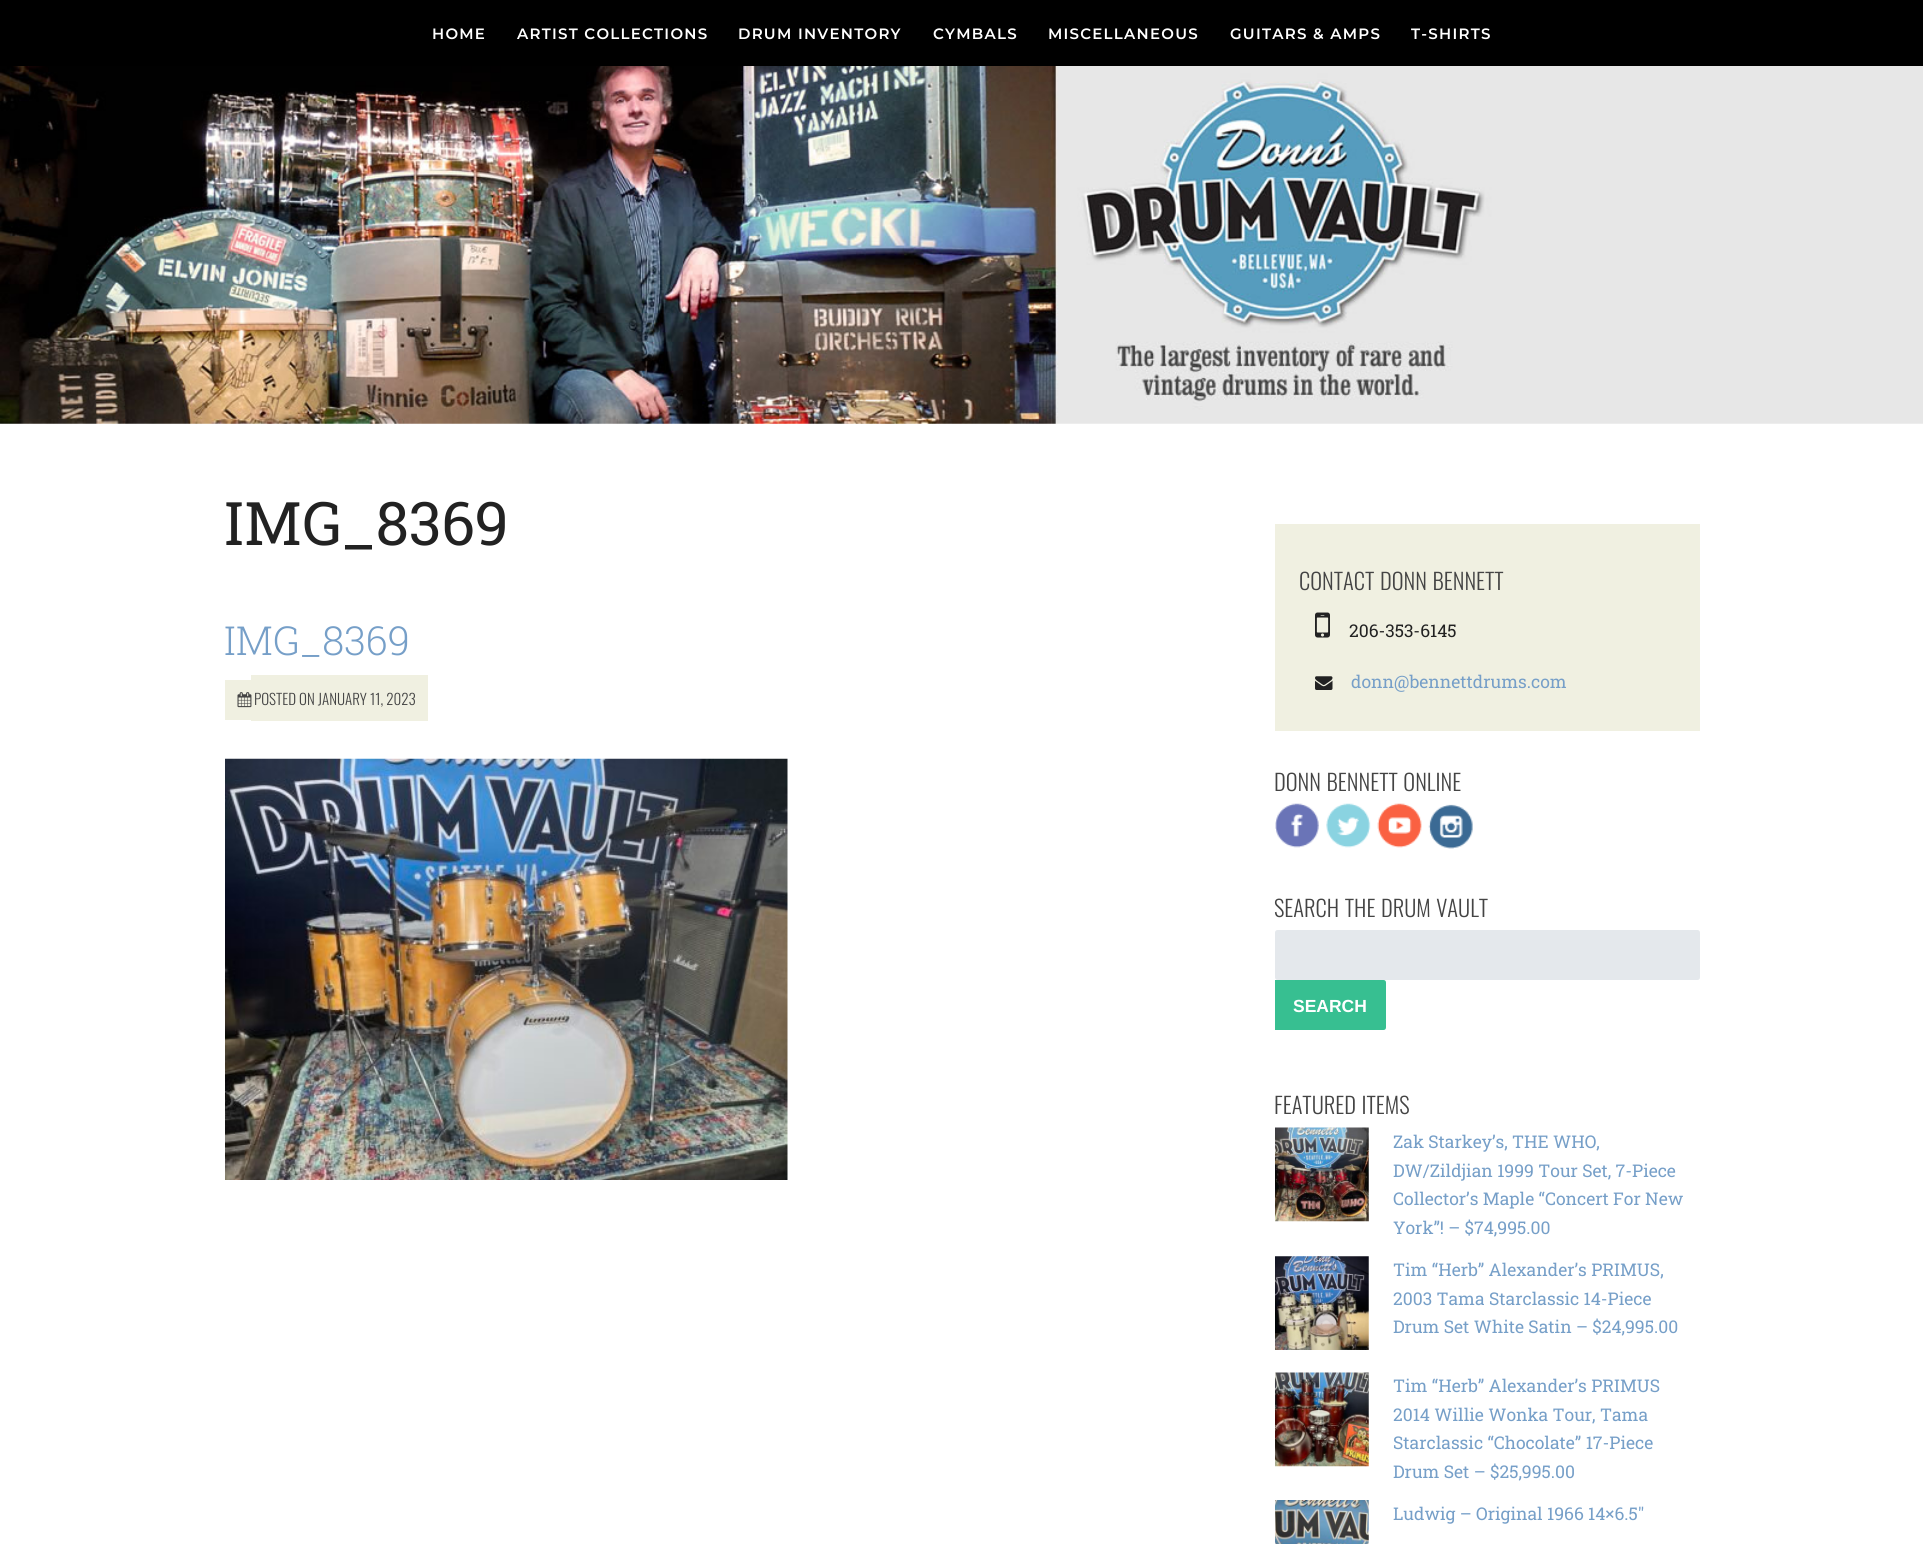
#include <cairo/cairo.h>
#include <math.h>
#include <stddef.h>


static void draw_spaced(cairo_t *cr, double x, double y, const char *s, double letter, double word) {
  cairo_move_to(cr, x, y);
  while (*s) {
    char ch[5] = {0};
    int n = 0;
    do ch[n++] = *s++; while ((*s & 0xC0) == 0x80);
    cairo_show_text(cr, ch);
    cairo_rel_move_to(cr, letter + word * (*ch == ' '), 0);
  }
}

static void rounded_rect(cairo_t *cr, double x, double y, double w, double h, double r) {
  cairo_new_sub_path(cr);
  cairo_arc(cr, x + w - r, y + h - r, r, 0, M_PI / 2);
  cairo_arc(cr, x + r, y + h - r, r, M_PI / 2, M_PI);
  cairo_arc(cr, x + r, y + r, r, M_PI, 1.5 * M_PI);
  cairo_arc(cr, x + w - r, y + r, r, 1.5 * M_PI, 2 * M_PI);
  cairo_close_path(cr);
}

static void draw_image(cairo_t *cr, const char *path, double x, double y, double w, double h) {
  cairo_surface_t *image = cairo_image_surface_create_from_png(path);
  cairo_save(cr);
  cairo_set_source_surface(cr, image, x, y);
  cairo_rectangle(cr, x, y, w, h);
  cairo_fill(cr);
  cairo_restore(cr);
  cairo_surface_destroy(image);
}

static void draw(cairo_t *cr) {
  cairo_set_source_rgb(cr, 1, 1, 1);
  cairo_paint(cr);
  cairo_set_source_rgb(cr, 0, 0, 0);
  cairo_rectangle(cr, 0, 0, 1923, 66);
  cairo_fill(cr);
  draw_image(cr, "images/1.png", 0, 66, 1923, 358);
  cairo_set_source_rgb(cr, 240 / 255.0, 240 / 255.0, 225 / 255.0);
  cairo_rectangle(cr, 225, 680, 26, 40);
  cairo_fill(cr);
  cairo_rectangle(cr, 251, 675, 177, 46);
  cairo_fill(cr);
  draw_image(cr, "images/2.png", 237, 692, 15, 16);
  draw_image(cr, "images/3.png", 225, 758, 563, 422);
  cairo_rectangle(cr, 1275, 524, 425, 207);
  cairo_fill(cr);
  draw_image(cr, "images/4.png", 1315, 612, 15, 26);
  draw_image(cr, "images/5.png", 1315, 676, 18, 14);
  draw_image(cr, "images/6.png", 1275, 803, 44, 45);
  draw_image(cr, "images/7.png", 1326, 803, 45, 45);
  draw_image(cr, "images/8.png", 1377, 803, 45, 45);
  draw_image(cr, "images/9.png", 1428, 804, 45, 45);
  cairo_set_source_rgb(cr, 228 / 255.0, 232 / 255.0, 236 / 255.0);
  rounded_rect(cr, 1275, 930, 425, 50, 2.5);
  cairo_fill(cr);
  cairo_set_source_rgb(cr, 55 / 255.0, 191 / 255.0, 145 / 255.0);
  cairo_new_path(cr);
  cairo_move_to(cr, 1275, 980);
  cairo_line_to(cr, 1383.5, 980);
  cairo_curve_to(cr, 1385, 980, 1386, 981, 1386, 982.5);
  cairo_line_to(cr, 1386, 1027.5);
  cairo_curve_to(cr, 1386, 1029, 1385, 1030, 1383.5, 1030);
  cairo_line_to(cr, 1275, 1030);
  cairo_close_path(cr);
  cairo_fill(cr);
  draw_image(cr, "images/10.png", 1275, 1127, 94, 95);
  draw_image(cr, "images/11.png", 1275, 1256, 94, 94);
  draw_image(cr, "images/12.png", 1275, 1372, 94, 95);
  draw_image(cr, "images/13.png", 1275, 1500, 94, 44);
  cairo_select_font_face(cr, "Montserrat SemiBold", CAIRO_FONT_SLANT_NORMAL, CAIRO_FONT_WEIGHT_NORMAL);
  cairo_set_font_size(cr, 15);
  cairo_set_source_rgb(cr, 1, 1, 1);
  draw_spaced(cr, 432, 39, "HOME", 1.25, 0);
  draw_spaced(cr, 517, 39, "ARTIST COLLECTIONS", 1.25, 0);
  draw_spaced(cr, 738, 39, "DRUM INVENTORY", 1.25, 0);
  draw_spaced(cr, 933, 39, "CYMBALS", 1.25, 0);
  draw_spaced(cr, 1048, 39, "MISCELLANEOUS", 1.25, 0);
  draw_spaced(cr, 1230, 39, "GUITARS & AMPS", 1.25, 0);
  draw_spaced(cr, 1411, 39, "T-SHIRTS", 1.25, 0);
  cairo_select_font_face(cr, "Roboto Slab", CAIRO_FONT_SLANT_NORMAL, CAIRO_FONT_WEIGHT_NORMAL);
  cairo_set_font_size(cr, 60);
  cairo_set_source_rgb(cr, 34 / 255.0, 34 / 255.0, 34 / 255.0);
  cairo_move_to(cr, 224, 545);
  cairo_show_text(cr, "IMG_8369");
  cairo_select_font_face(cr, "Roboto Slab Light", CAIRO_FONT_SLANT_NORMAL, CAIRO_FONT_WEIGHT_NORMAL);
  cairo_set_font_size(cr, 40);
  cairo_set_source_rgb(cr, 118 / 255.0, 159 / 255.0, 200 / 255.0);
  cairo_move_to(cr, 224, 655);
  cairo_show_text(cr, "IMG_8369");
  cairo_select_font_face(cr, "Oswald Light", CAIRO_FONT_SLANT_NORMAL, CAIRO_FONT_WEIGHT_NORMAL);
  cairo_set_font_size(cr, 15);
  cairo_set_source_rgb(cr, 68 / 255.0, 68 / 255.0, 68 / 255.0);
  cairo_move_to(cr, 254, 705);
  cairo_show_text(cr, "POSTED ON JANUARY 11, 2023");
  cairo_set_font_size(cr, 22.5);
  draw_spaced(cr, 1299, 590, "CONTACT DONN BENNETT", 0, 1);
  cairo_select_font_face(cr, "Roboto Slab", CAIRO_FONT_SLANT_NORMAL, CAIRO_FONT_WEIGHT_NORMAL);
  cairo_set_font_size(cr, 17.5);
  cairo_set_source_rgb(cr, 34 / 255.0, 34 / 255.0, 34 / 255.0);
  cairo_move_to(cr, 1349, 637);
  cairo_show_text(cr, "206-353-6145");
  cairo_set_source_rgb(cr, 118 / 255.0, 159 / 255.0, 200 / 255.0);
  cairo_move_to(cr, 1351, 688);
  cairo_show_text(cr, "donn@bennettdrums.com");
  cairo_select_font_face(cr, "Oswald Light", CAIRO_FONT_SLANT_NORMAL, CAIRO_FONT_WEIGHT_NORMAL);
  cairo_set_font_size(cr, 22.5);
  cairo_set_source_rgb(cr, 68 / 255.0, 68 / 255.0, 68 / 255.0);
  draw_spaced(cr, 1274, 791, "DONN BENNETT ONLINE", 0, 1);
  draw_spaced(cr, 1274, 917, "SEARCH THE DRUM VAULT", 0, 1);
  cairo_select_font_face(cr, "Liberation Sans", CAIRO_FONT_SLANT_NORMAL, CAIRO_FONT_WEIGHT_BOLD);
  cairo_set_font_size(cr, 17.5);
  cairo_set_source_rgb(cr, 1, 1, 1);
  cairo_move_to(cr, 1293, 1012);
  cairo_show_text(cr, "SEARCH");
  cairo_select_font_face(cr, "Oswald Light", CAIRO_FONT_SLANT_NORMAL, CAIRO_FONT_WEIGHT_NORMAL);
  cairo_set_font_size(cr, 22.5);
  cairo_set_source_rgb(cr, 68 / 255.0, 68 / 255.0, 68 / 255.0);
  draw_spaced(cr, 1274, 1114, "FEATURED ITEMS", 0, 1);
  cairo_select_font_face(cr, "Roboto Slab", CAIRO_FONT_SLANT_NORMAL, CAIRO_FONT_WEIGHT_NORMAL);
  cairo_set_font_size(cr, 17.5);
  cairo_set_source_rgb(cr, 118 / 255.0, 159 / 255.0, 200 / 255.0);
  cairo_move_to(cr, 1393, 1148);
  cairo_show_text(cr, "Zak Starkey’s, THE WHO,");
  cairo_move_to(cr, 1393, 1177);
  cairo_show_text(cr, "DW/Zildjian 1999 Tour Set, 7-Piece");
  cairo_move_to(cr, 1393, 1205);
  cairo_show_text(cr, "Collector’s Maple “Concert For New");
  cairo_move_to(cr, 1393, 1234);
  cairo_show_text(cr, "York”! – $74,995.00");
  cairo_move_to(cr, 1393, 1276);
  cairo_show_text(cr, "Tim “Herb” Alexander’s PRIMUS,");
  cairo_move_to(cr, 1393, 1305);
  cairo_show_text(cr, "2003 Tama Starclassic 14-Piece");
  cairo_move_to(cr, 1393, 1333);
  cairo_show_text(cr, "Drum Set White Satin – $24,995.00");
  cairo_move_to(cr, 1393, 1392);
  cairo_show_text(cr, "Tim “Herb” Alexander’s PRIMUS");
  cairo_move_to(cr, 1393, 1421);
  cairo_show_text(cr, "2014 Willie Wonka Tour, Tama");
  cairo_move_to(cr, 1393, 1449);
  cairo_show_text(cr, "Starclassic “Chocolate” 17-Piece");
  cairo_move_to(cr, 1393, 1478);
  cairo_show_text(cr, "Drum Set – $25,995.00");
  cairo_move_to(cr, 1393, 1520);
  cairo_show_text(cr, "Ludwig – Original 1966 14×6.5″");
}

int main(void) {
  cairo_surface_t *surface = cairo_image_surface_create(CAIRO_FORMAT_RGB24, 1923, 1544);
  cairo_t *cr = cairo_create(surface);
  cairo_font_options_t *options = cairo_font_options_create();
  cairo_font_options_set_hint_metrics(options, CAIRO_HINT_METRICS_OFF);
  cairo_font_options_set_hint_style(options, CAIRO_HINT_STYLE_NONE);
  cairo_set_font_options(cr, options);
  cairo_set_miter_limit(cr, 4);
  draw(cr);
  cairo_surface_write_to_png(surface, "out.png");
  cairo_font_options_destroy(options);
  cairo_destroy(cr);
  cairo_surface_destroy(surface);
  return 0;
}
